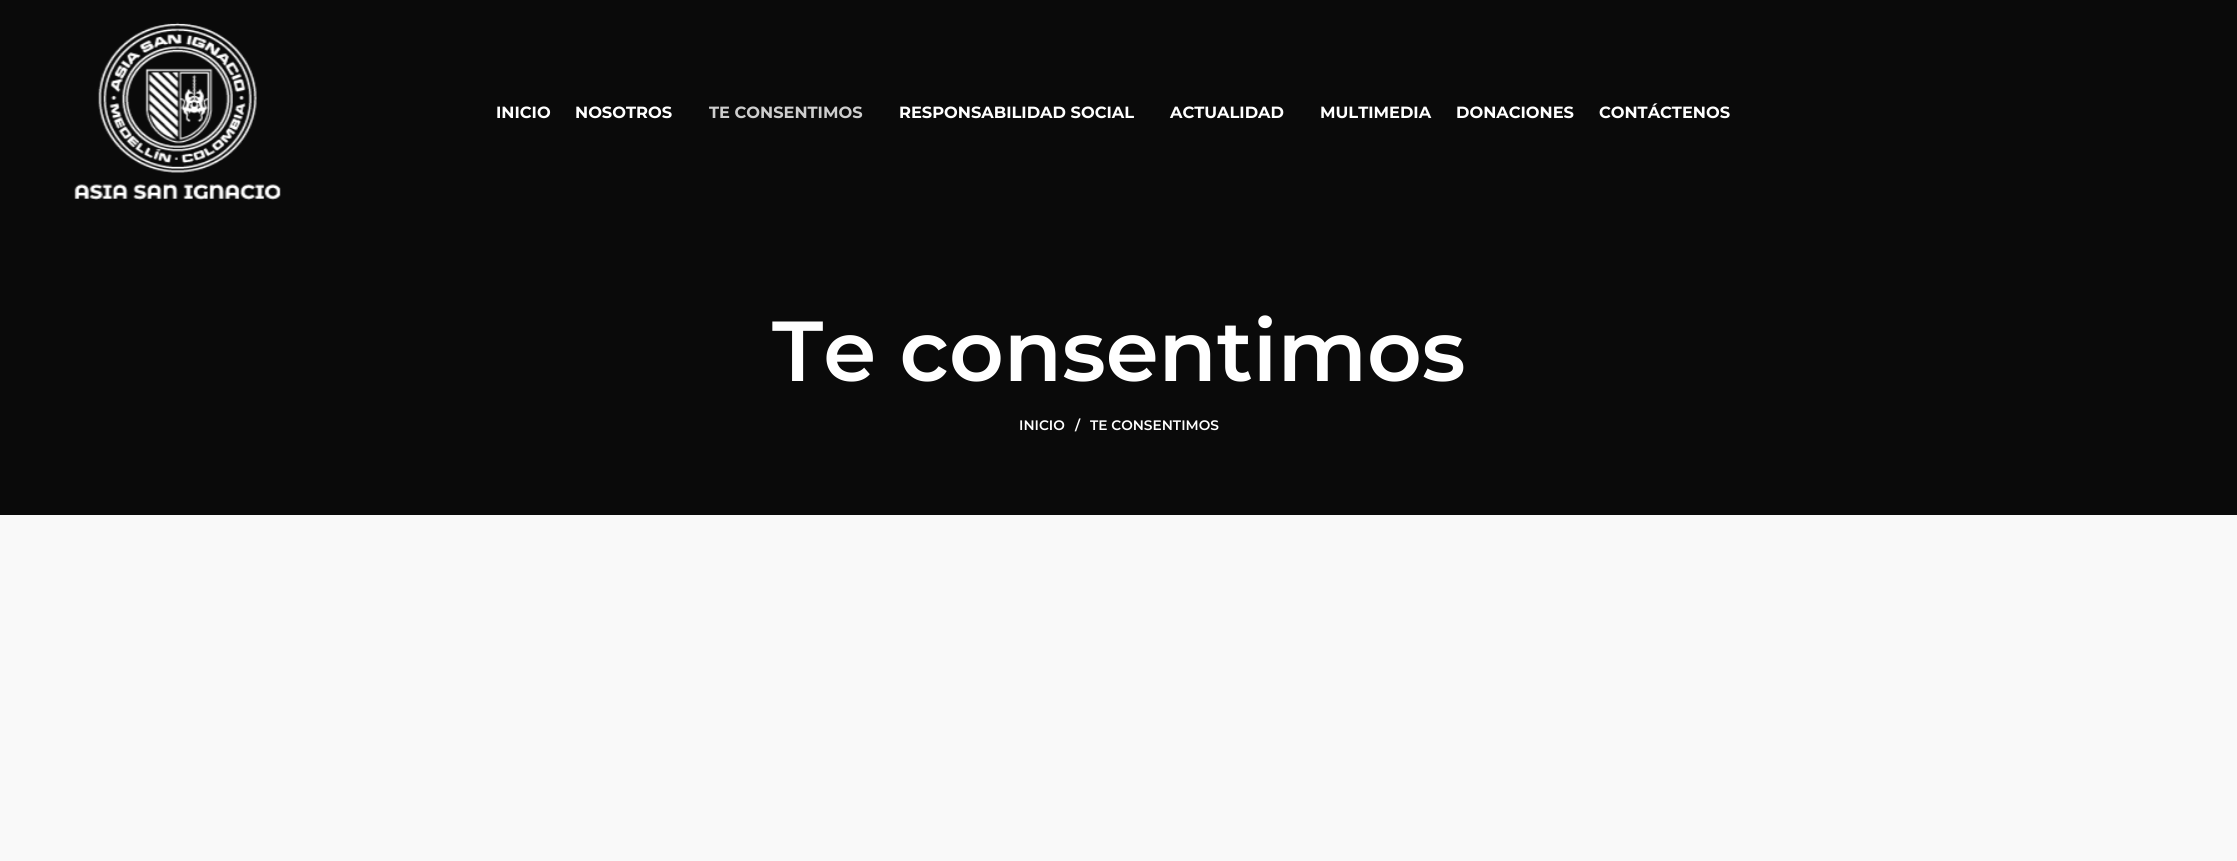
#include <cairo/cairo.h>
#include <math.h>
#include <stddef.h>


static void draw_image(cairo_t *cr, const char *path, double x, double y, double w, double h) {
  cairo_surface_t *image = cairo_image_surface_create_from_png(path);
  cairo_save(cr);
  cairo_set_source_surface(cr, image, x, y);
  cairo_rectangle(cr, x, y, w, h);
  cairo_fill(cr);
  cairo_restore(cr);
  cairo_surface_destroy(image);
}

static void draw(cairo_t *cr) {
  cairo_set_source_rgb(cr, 249 / 255.0, 249 / 255.0, 249 / 255.0);
  cairo_paint(cr);
  cairo_set_source_rgb(cr, 10 / 255.0, 10 / 255.0, 10 / 255.0);
  cairo_rectangle(cr, 0, 0, 2237, 515);
  cairo_fill(cr);
  draw_image(cr, "images/1.png", 74, 22, 207, 178);
  cairo_select_font_face(cr, "Montserrat", CAIRO_FONT_SLANT_NORMAL, CAIRO_FONT_WEIGHT_BOLD);
  cairo_set_font_size(cr, 16.25);
  cairo_set_source_rgb(cr, 1, 1, 1);
  cairo_move_to(cr, 496, 118);
  cairo_show_text(cr, "INICIO");
  cairo_move_to(cr, 575, 118);
  cairo_show_text(cr, "NOSOTROS");
  cairo_set_source_rgb(cr, 206 / 255.0, 206 / 255.0, 206 / 255.0);
  cairo_move_to(cr, 709, 118);
  cairo_show_text(cr, "TE CONSENTIMOS");
  cairo_set_source_rgb(cr, 1, 1, 1);
  cairo_move_to(cr, 899, 118);
  cairo_show_text(cr, "RESPONSABILIDAD SOCIAL");
  cairo_move_to(cr, 1170, 118);
  cairo_show_text(cr, "ACTUALIDAD");
  cairo_move_to(cr, 1320, 118);
  cairo_show_text(cr, "MULTIMEDIA");
  cairo_move_to(cr, 1456, 118);
  cairo_show_text(cr, "DONACIONES");
  cairo_move_to(cr, 1599, 118);
  cairo_show_text(cr, "CONTÁCTENOS");
  cairo_select_font_face(cr, "Montserrat SemiBold", CAIRO_FONT_SLANT_NORMAL, CAIRO_FONT_WEIGHT_NORMAL);
  cairo_set_font_size(cr, 85);
  cairo_move_to(cr, 772, 381);
  cairo_show_text(cr, "Te consentimos");
  cairo_set_font_size(cr, 13.75);
  cairo_move_to(cr, 1019, 430);
  cairo_show_text(cr, "INICIO");
  cairo_move_to(cr, 1075, 430);
  cairo_show_text(cr, "/");
  cairo_move_to(cr, 1090, 430);
  cairo_show_text(cr, "TE CONSENTIMOS");
}

int main(void) {
  cairo_surface_t *surface = cairo_image_surface_create(CAIRO_FORMAT_RGB24, 2237, 861);
  cairo_t *cr = cairo_create(surface);
  cairo_font_options_t *options = cairo_font_options_create();
  cairo_font_options_set_hint_metrics(options, CAIRO_HINT_METRICS_OFF);
  cairo_font_options_set_hint_style(options, CAIRO_HINT_STYLE_NONE);
  cairo_set_font_options(cr, options);
  cairo_set_miter_limit(cr, 4);
  draw(cr);
  cairo_surface_write_to_png(surface, "out.png");
  cairo_font_options_destroy(options);
  cairo_destroy(cr);
  cairo_surface_destroy(surface);
  return 0;
}
